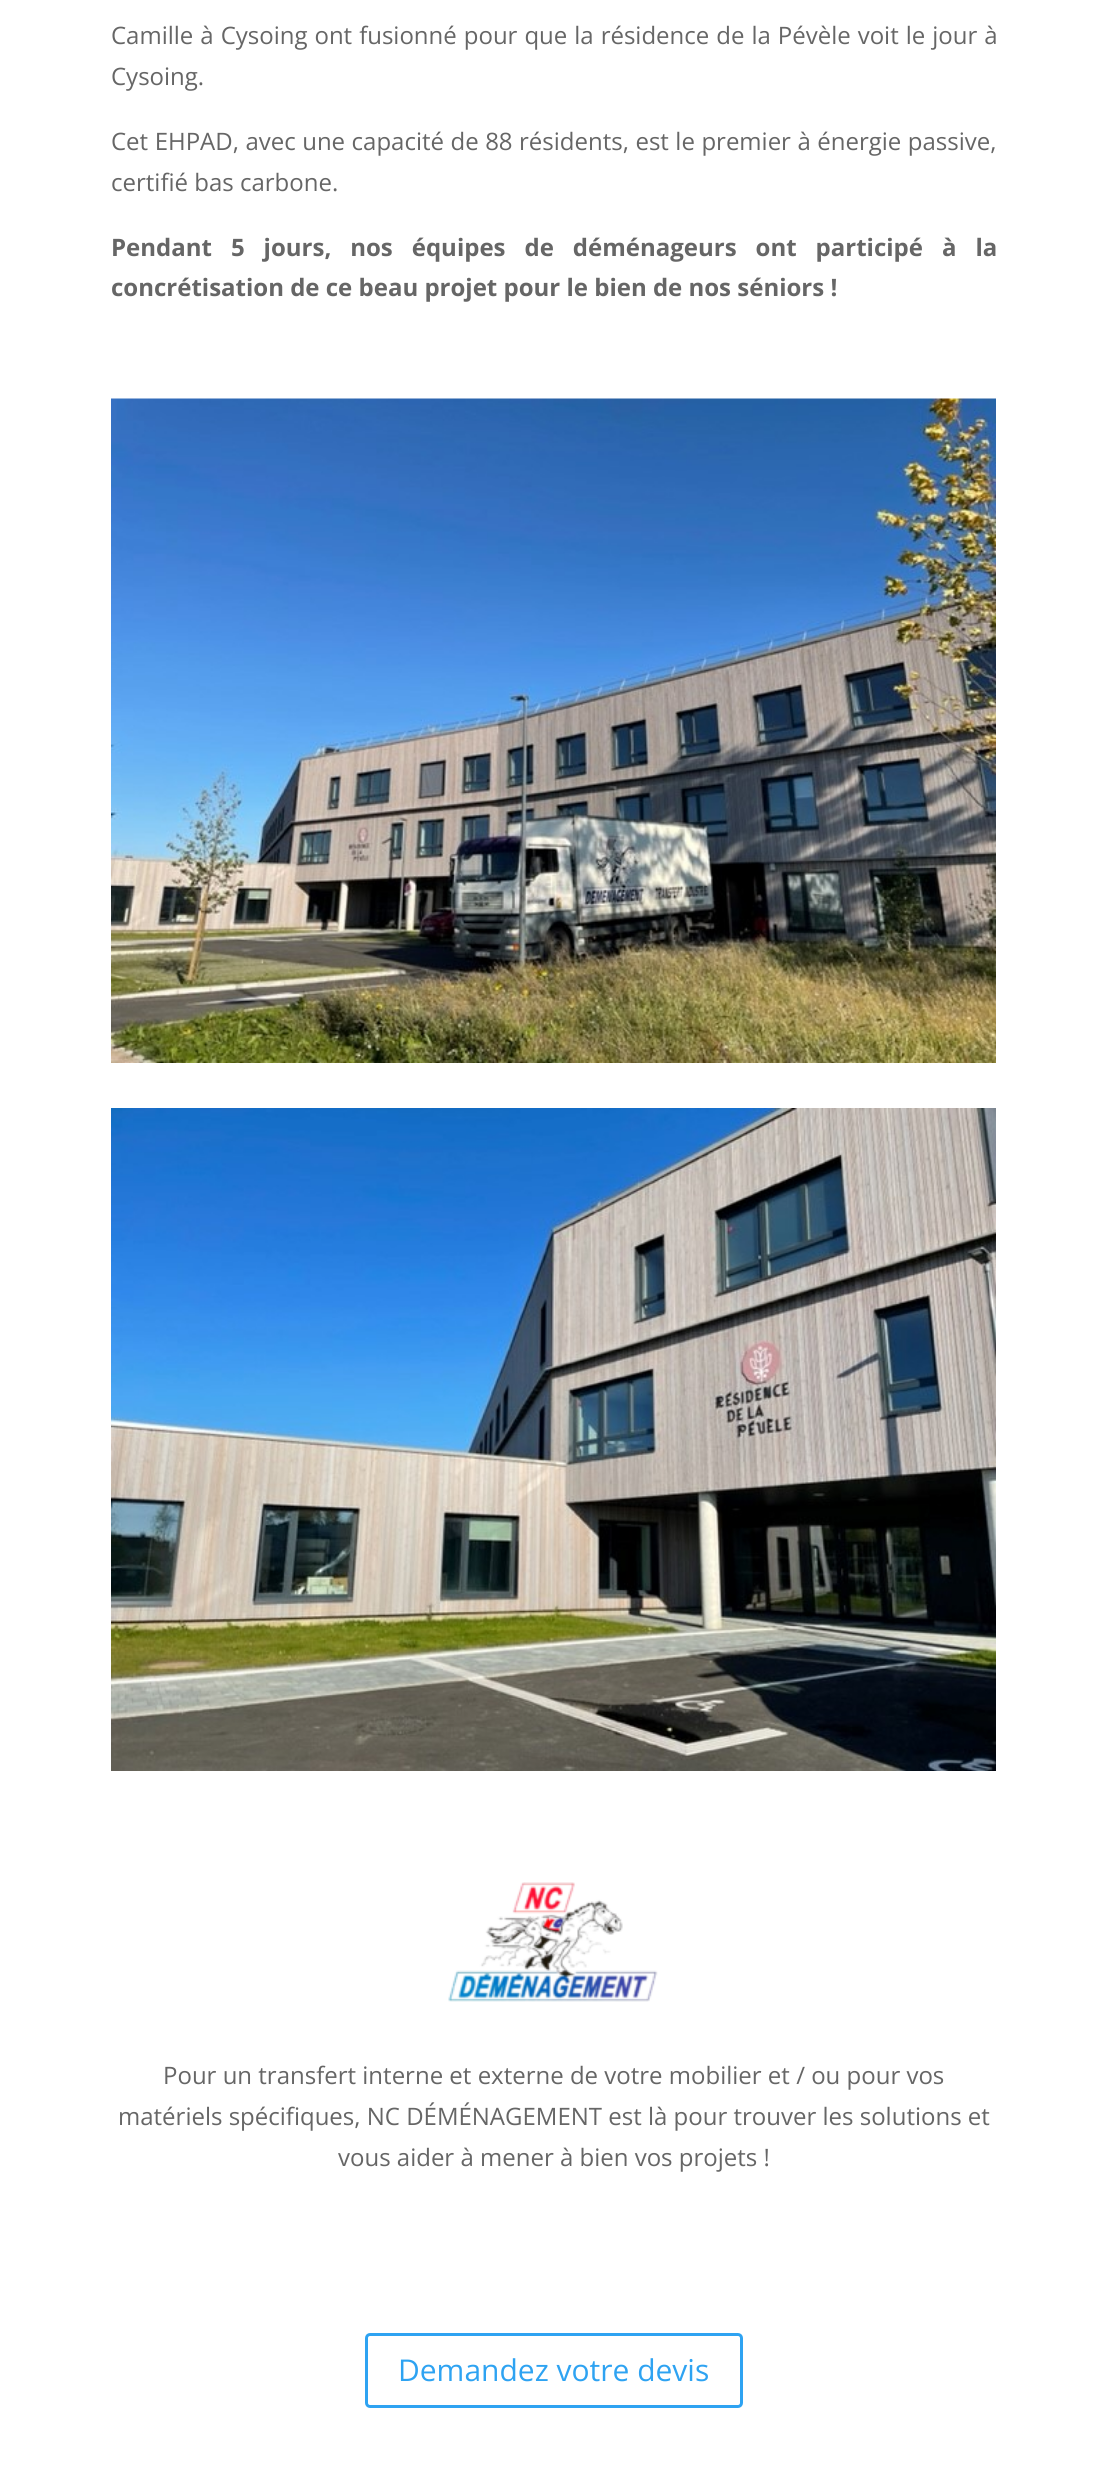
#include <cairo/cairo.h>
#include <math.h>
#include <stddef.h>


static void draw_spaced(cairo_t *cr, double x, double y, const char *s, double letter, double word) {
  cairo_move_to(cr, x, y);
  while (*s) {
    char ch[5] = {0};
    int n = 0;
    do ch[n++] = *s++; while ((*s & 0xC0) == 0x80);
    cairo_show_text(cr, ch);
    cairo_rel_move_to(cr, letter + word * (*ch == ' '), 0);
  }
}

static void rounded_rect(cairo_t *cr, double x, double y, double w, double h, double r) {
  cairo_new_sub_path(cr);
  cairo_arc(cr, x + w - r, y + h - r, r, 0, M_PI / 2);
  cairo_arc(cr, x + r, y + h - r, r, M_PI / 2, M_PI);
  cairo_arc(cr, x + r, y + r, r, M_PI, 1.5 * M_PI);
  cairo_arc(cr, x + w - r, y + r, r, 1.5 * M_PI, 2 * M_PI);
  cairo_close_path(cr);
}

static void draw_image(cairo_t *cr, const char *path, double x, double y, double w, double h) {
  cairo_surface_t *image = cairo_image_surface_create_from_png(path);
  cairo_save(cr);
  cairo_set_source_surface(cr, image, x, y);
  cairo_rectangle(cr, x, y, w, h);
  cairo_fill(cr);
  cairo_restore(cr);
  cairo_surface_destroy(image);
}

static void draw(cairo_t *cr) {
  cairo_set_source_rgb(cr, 1, 1, 1);
  cairo_paint(cr);
  draw_image(cr, "images/1.png", 111, 398, 885, 665);
  draw_image(cr, "images/2.png", 111, 1108, 885, 663);
  draw_image(cr, "images/3.png", 448, 1882, 210, 120);
  rounded_rect(cr, 366.5, 2334.5, 375, 72, 3.5);
  cairo_set_source_rgb(cr, 46 / 255.0, 163 / 255.0, 242 / 255.0);
  cairo_set_line_width(cr, 3);
  cairo_stroke(cr);
  cairo_select_font_face(cr, "Open Sans", CAIRO_FONT_SLANT_NORMAL, CAIRO_FONT_WEIGHT_NORMAL);
  cairo_set_font_size(cr, 24);
  cairo_set_source_rgb(cr, 102 / 255.0, 102 / 255.0, 102 / 255.0);
  draw_spaced(cr, 111, 44, "Camille à Cysoing ont fusionné pour que la résidence de la Pévèle voit le jour à", 0, 0.75);
  cairo_move_to(cr, 111, 85);
  cairo_show_text(cr, "Cysoing.");
  draw_spaced(cr, 111, 150, "Cet EHPAD, avec une capacité de 88 résidents, est le premier à énergie passive,", 0, 0.25);
  cairo_move_to(cr, 111, 191);
  cairo_show_text(cr, "certifié bas carbone.");
  cairo_select_font_face(cr, "Open Sans", CAIRO_FONT_SLANT_NORMAL, CAIRO_FONT_WEIGHT_BOLD);
  draw_spaced(cr, 111, 256, "Pendant 5 jours, nos équipes de déménageurs ont participé à la", 0, 12.75);
  cairo_move_to(cr, 111, 296);
  cairo_show_text(cr, "concrétisation de ce beau projet pour le bien de nos séniors !");
  cairo_select_font_face(cr, "Open Sans", CAIRO_FONT_SLANT_NORMAL, CAIRO_FONT_WEIGHT_NORMAL);
  cairo_move_to(cr, 163, 2084);
  cairo_show_text(cr, "Pour un transfert interne et externe de votre mobilier et / ou pour vos");
  cairo_move_to(cr, 118, 2125);
  cairo_show_text(cr, "matériels spécifiques, NC DÉMÉNAGEMENT est là pour trouver les solutions et");
  cairo_move_to(cr, 338, 2166);
  cairo_show_text(cr, "vous aider à mener à bien vos projets !");
  cairo_set_font_size(cr, 30);
  cairo_set_source_rgb(cr, 46 / 255.0, 163 / 255.0, 242 / 255.0);
  cairo_move_to(cr, 398, 2381);
  cairo_show_text(cr, "Demandez votre devis");
}

int main(void) {
  cairo_surface_t *surface = cairo_image_surface_create(CAIRO_FORMAT_RGB24, 1106, 2475);
  cairo_t *cr = cairo_create(surface);
  cairo_font_options_t *options = cairo_font_options_create();
  cairo_font_options_set_hint_metrics(options, CAIRO_HINT_METRICS_OFF);
  cairo_font_options_set_hint_style(options, CAIRO_HINT_STYLE_NONE);
  cairo_set_font_options(cr, options);
  cairo_set_miter_limit(cr, 4);
  draw(cr);
  cairo_surface_write_to_png(surface, "out.png");
  cairo_font_options_destroy(options);
  cairo_destroy(cr);
  cairo_surface_destroy(surface);
  return 0;
}
